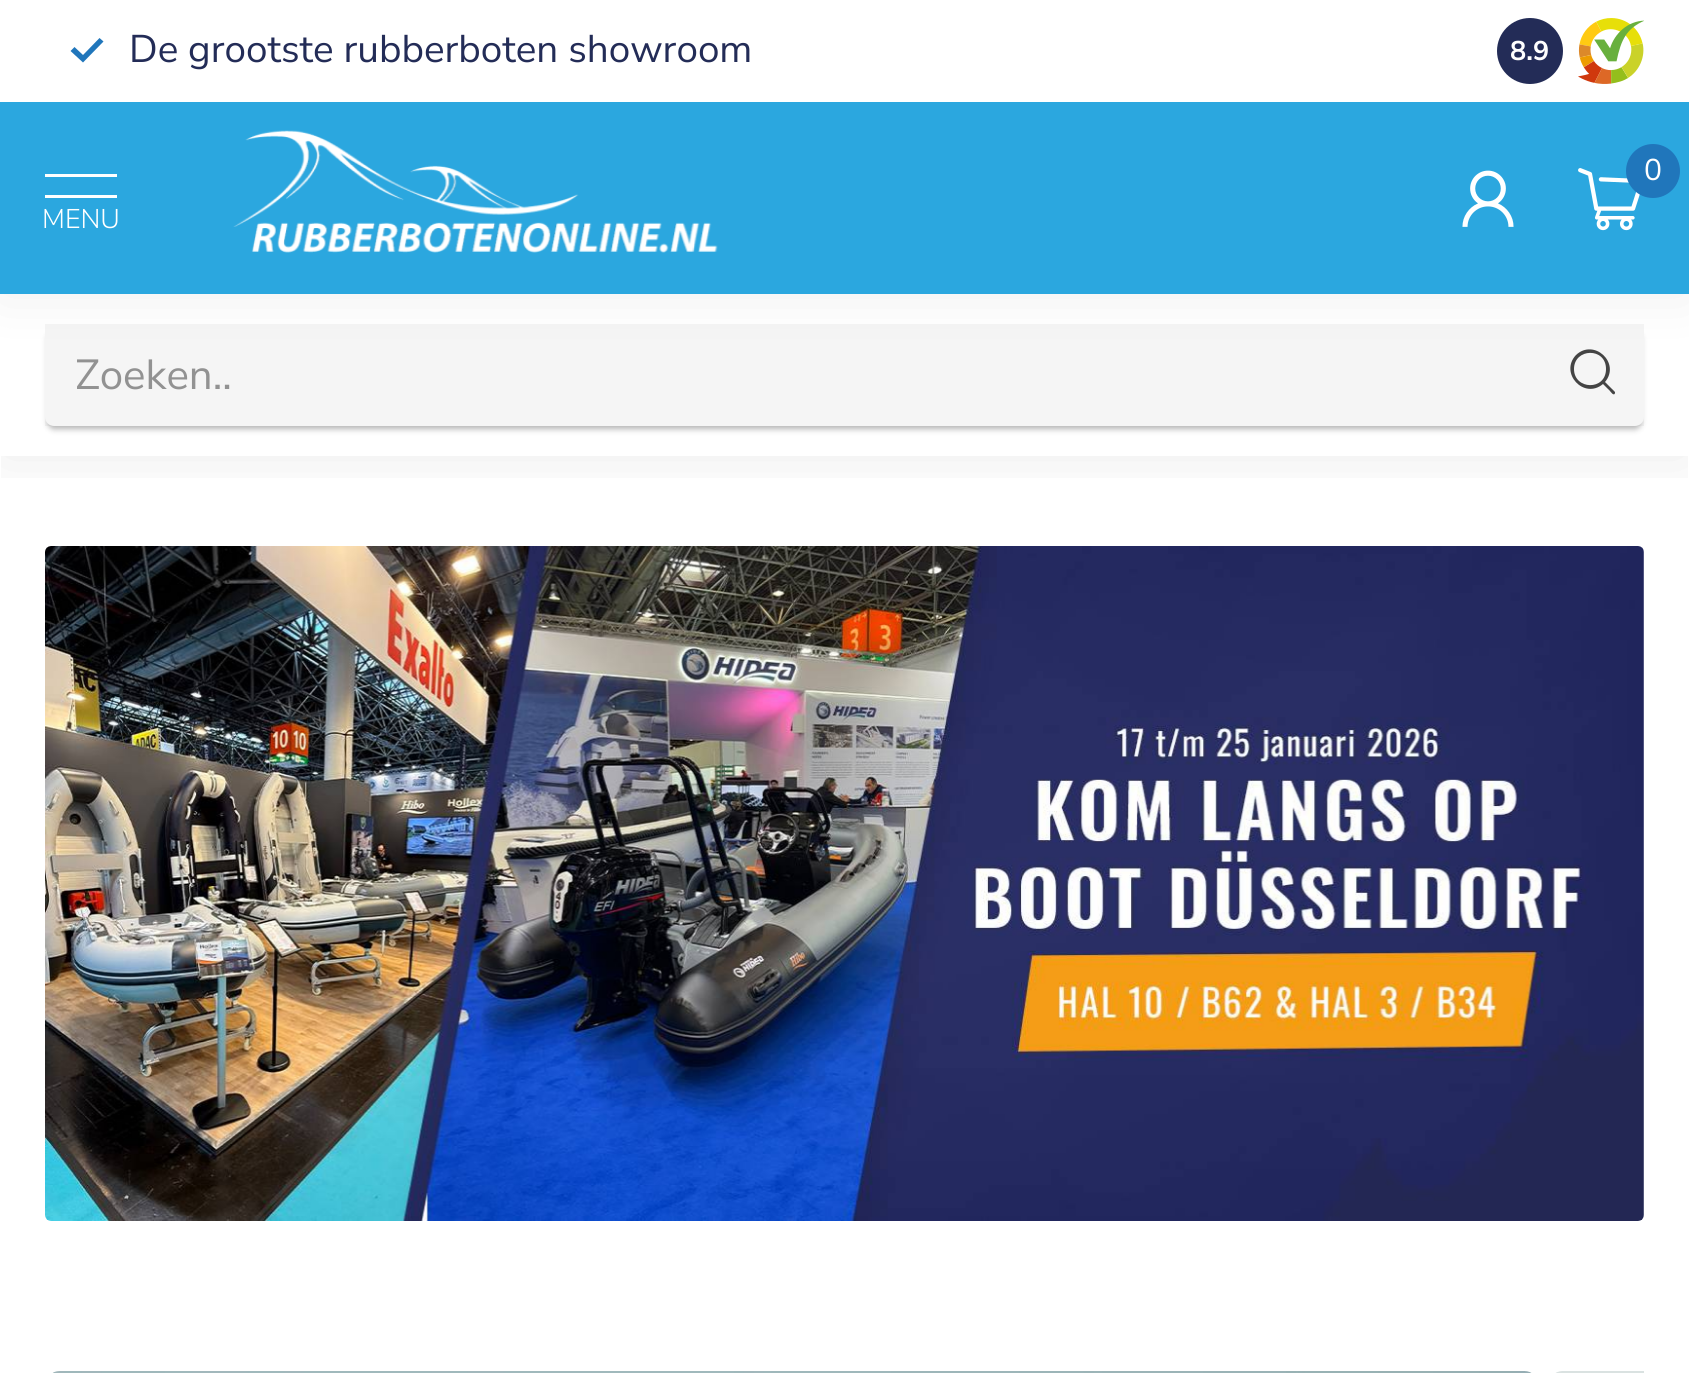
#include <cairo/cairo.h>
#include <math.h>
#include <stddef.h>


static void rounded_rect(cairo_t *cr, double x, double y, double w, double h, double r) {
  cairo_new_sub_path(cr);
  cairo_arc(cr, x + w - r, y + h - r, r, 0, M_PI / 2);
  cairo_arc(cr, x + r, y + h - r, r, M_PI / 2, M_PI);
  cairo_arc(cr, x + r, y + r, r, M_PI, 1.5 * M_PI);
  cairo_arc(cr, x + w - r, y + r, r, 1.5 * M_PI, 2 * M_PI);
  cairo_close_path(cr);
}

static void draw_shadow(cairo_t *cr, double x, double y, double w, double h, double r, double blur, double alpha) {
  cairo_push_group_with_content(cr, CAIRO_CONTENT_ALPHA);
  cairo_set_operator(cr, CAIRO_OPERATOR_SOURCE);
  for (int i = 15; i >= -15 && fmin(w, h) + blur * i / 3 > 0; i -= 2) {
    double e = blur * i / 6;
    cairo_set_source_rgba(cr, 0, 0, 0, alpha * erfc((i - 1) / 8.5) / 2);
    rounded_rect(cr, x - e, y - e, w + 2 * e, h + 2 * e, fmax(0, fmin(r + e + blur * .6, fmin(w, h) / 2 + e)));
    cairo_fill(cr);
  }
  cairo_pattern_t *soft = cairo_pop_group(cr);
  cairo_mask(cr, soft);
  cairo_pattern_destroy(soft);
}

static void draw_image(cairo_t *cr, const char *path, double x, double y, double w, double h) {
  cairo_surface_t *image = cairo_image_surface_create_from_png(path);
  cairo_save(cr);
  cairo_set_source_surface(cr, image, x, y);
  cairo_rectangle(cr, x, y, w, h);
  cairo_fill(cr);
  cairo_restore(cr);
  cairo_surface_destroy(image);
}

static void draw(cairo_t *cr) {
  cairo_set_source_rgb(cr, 1, 1, 1);
  cairo_paint(cr);
  draw_image(cr, "images/5.png", 45, 546, 1599, 675);
  cairo_save(cr);
  cairo_rectangle(cr, 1, 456, 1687, 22);
  cairo_clip(cr);
  cairo_set_source_rgb(cr, 0, 0, 0);
  draw_shadow(cr, 0, 294, 1689, 162, 0, 33, 0.08);
  cairo_restore(cr);
  cairo_set_source_rgb(cr, 155 / 255.0, 155 / 255.0, 155 / 255.0);
  draw_shadow(cr, 48, 333, 1593, 96, 6, 3, 0.75);
  cairo_set_source_rgb(cr, 1, 1, 1);
  rounded_rect(cr, 45, 324, 1599, 102, 9);
  cairo_fill(cr);
  cairo_set_source_rgba(cr, 51 / 255.0, 51 / 255.0, 51 / 255.0, 0.05);
  cairo_rectangle(cr, 45, 324, 1599, 102);
  cairo_fill(cr);
  cairo_set_source_rgb(cr, 68 / 255.0, 68 / 255.0, 68 / 255.0);
  cairo_new_path(cr);
  cairo_move_to(cr, 1615, 392);
  cairo_line_to(cr, 1605, 382);
  cairo_curve_to(cr, 1621, 363, 1594, 338, 1576, 355);
  cairo_curve_to(cr, 1559, 373, 1584, 400, 1603, 384);
  cairo_line_to(cr, 1610, 391);
  cairo_curve_to(cr, 1610, 391, 1614, 397, 1615, 393);
  cairo_close_path(cr);
  cairo_move_to(cr, 1574, 369);
  cairo_curve_to(cr, 1574, 348, 1606, 347, 1606, 369);
  cairo_curve_to(cr, 1606, 391, 1574, 390, 1574, 369);
  cairo_close_path(cr);
  cairo_fill(cr);
  cairo_set_source_rgb(cr, 0, 0, 0);
  draw_shadow(cr, 0, 0, 1689, 294, 0, 30, 0.07);
  cairo_set_source_rgb(cr, 43 / 255.0, 167 / 255.0, 223 / 255.0);
  cairo_rectangle(cr, 0, 102, 1689, 192);
  cairo_fill(cr);
  cairo_set_source_rgb(cr, 1, 1, 1);
  cairo_rectangle(cr, 0, 0, 1689, 102);
  cairo_fill(cr);
  cairo_set_source_rgb(cr, 32 / 255.0, 118 / 255.0, 187 / 255.0);
  cairo_new_path(cr);
  cairo_move_to(cr, 83, 62.5);
  cairo_line_to(cr, 70.5, 51);
  cairo_line_to(cr, 74.5, 47);
  cairo_line_to(cr, 83, 55);
  cairo_line_to(cr, 99.5, 38);
  cairo_line_to(cr, 103.5, 41.5);
  cairo_close_path(cr);
  cairo_fill(cr);
  cairo_set_source_rgb(cr, 35 / 255.0, 44 / 255.0, 87 / 255.0);
  cairo_arc(cr, 1530, 51, 33, 0, 2 * M_PI);
  cairo_fill(cr);
  draw_image(cr, "images/1.png", 1578, 18, 66, 66);
  draw_image(cr, "images/2.png", 1462, 170, 52, 57);
  draw_image(cr, "images/3.png", 1578, 168, 62, 63);
  cairo_set_source_rgb(cr, 32 / 255.0, 118 / 255.0, 187 / 255.0);
  cairo_arc(cr, 1653, 171, 27, 0, 2 * M_PI);
  cairo_fill(cr);
  cairo_set_source_rgb(cr, 1, 1, 1);
  cairo_rectangle(cr, 45, 174, 72, 3);
  cairo_fill(cr);
  cairo_rectangle(cr, 45, 195, 72, 3);
  cairo_fill(cr);
  draw_image(cr, "images/4.png", 233, 130, 485, 123);
  draw_image(cr, "images/6.png", 53, 1371, 1479, 2);
  cairo_set_source_rgba(cr, 0, 0, 0, 0.1);
  cairo_new_path(cr);
  cairo_move_to(cr, 60, 1371);
  cairo_line_to(cr, 1524, 1371);
  cairo_curve_to(cr, 1532.5, 1371, 1539, 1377.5, 1539, 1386);
  cairo_line_to(cr, 1539, 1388);
  cairo_line_to(cr, 45, 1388);
  cairo_line_to(cr, 45, 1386);
  cairo_curve_to(cr, 45, 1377.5, 51.5, 1371, 60, 1371);
  cairo_close_path(cr);
  cairo_fill(cr);
  draw_image(cr, "images/7.png", 1556, 1371, 88, 2);
  cairo_new_path(cr);
  cairo_move_to(cr, 1563, 1371);
  cairo_line_to(cr, 1644, 1371);
  cairo_line_to(cr, 1644, 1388);
  cairo_line_to(cr, 1548, 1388);
  cairo_line_to(cr, 1548, 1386);
  cairo_curve_to(cr, 1548, 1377.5, 1554.5, 1371, 1563, 1371);
  cairo_close_path(cr);
  cairo_fill(cr);
  cairo_select_font_face(cr, "Nunito Sans", CAIRO_FONT_SLANT_NORMAL, CAIRO_FONT_WEIGHT_NORMAL);
  cairo_set_font_size(cr, 38.6);
  cairo_set_source_rgb(cr, 35 / 255.0, 44 / 255.0, 87 / 255.0);
  cairo_move_to(cr, 129, 62);
  cairo_show_text(cr, "De grootste rubberboten showroom");
  cairo_select_font_face(cr, "Nunito Sans", CAIRO_FONT_SLANT_NORMAL, CAIRO_FONT_WEIGHT_BOLD);
  cairo_set_font_size(cr, 27);
  cairo_set_source_rgb(cr, 1, 1, 1);
  cairo_move_to(cr, 1510, 60);
  cairo_show_text(cr, "8.9");
  cairo_select_font_face(cr, "Nunito Sans", CAIRO_FONT_SLANT_NORMAL, CAIRO_FONT_WEIGHT_NORMAL);
  cairo_set_font_size(cr, 30);
  cairo_move_to(cr, 1644, 180);
  cairo_show_text(cr, "0");
  cairo_select_font_face(cr, "Nunito Sans Light", CAIRO_FONT_SLANT_NORMAL, CAIRO_FONT_WEIGHT_NORMAL);
  cairo_set_font_size(cr, 27);
  cairo_move_to(cr, 42, 228);
  cairo_show_text(cr, "MENU");
  cairo_select_font_face(cr, "Nunito Sans", CAIRO_FONT_SLANT_NORMAL, CAIRO_FONT_WEIGHT_NORMAL);
  cairo_set_font_size(cr, 42);
  cairo_set_source_rgb(cr, 146 / 255.0, 146 / 255.0, 146 / 255.0);
  cairo_move_to(cr, 75, 389);
  cairo_show_text(cr, "Zoeken..");
}

int main(void) {
  cairo_surface_t *surface = cairo_image_surface_create(CAIRO_FORMAT_RGB24, 1689, 1373);
  cairo_t *cr = cairo_create(surface);
  cairo_font_options_t *options = cairo_font_options_create();
  cairo_font_options_set_hint_metrics(options, CAIRO_HINT_METRICS_OFF);
  cairo_font_options_set_hint_style(options, CAIRO_HINT_STYLE_NONE);
  cairo_set_font_options(cr, options);
  cairo_set_miter_limit(cr, 4);
  draw(cr);
  cairo_surface_write_to_png(surface, "out.png");
  cairo_font_options_destroy(options);
  cairo_destroy(cr);
  cairo_surface_destroy(surface);
  return 0;
}
